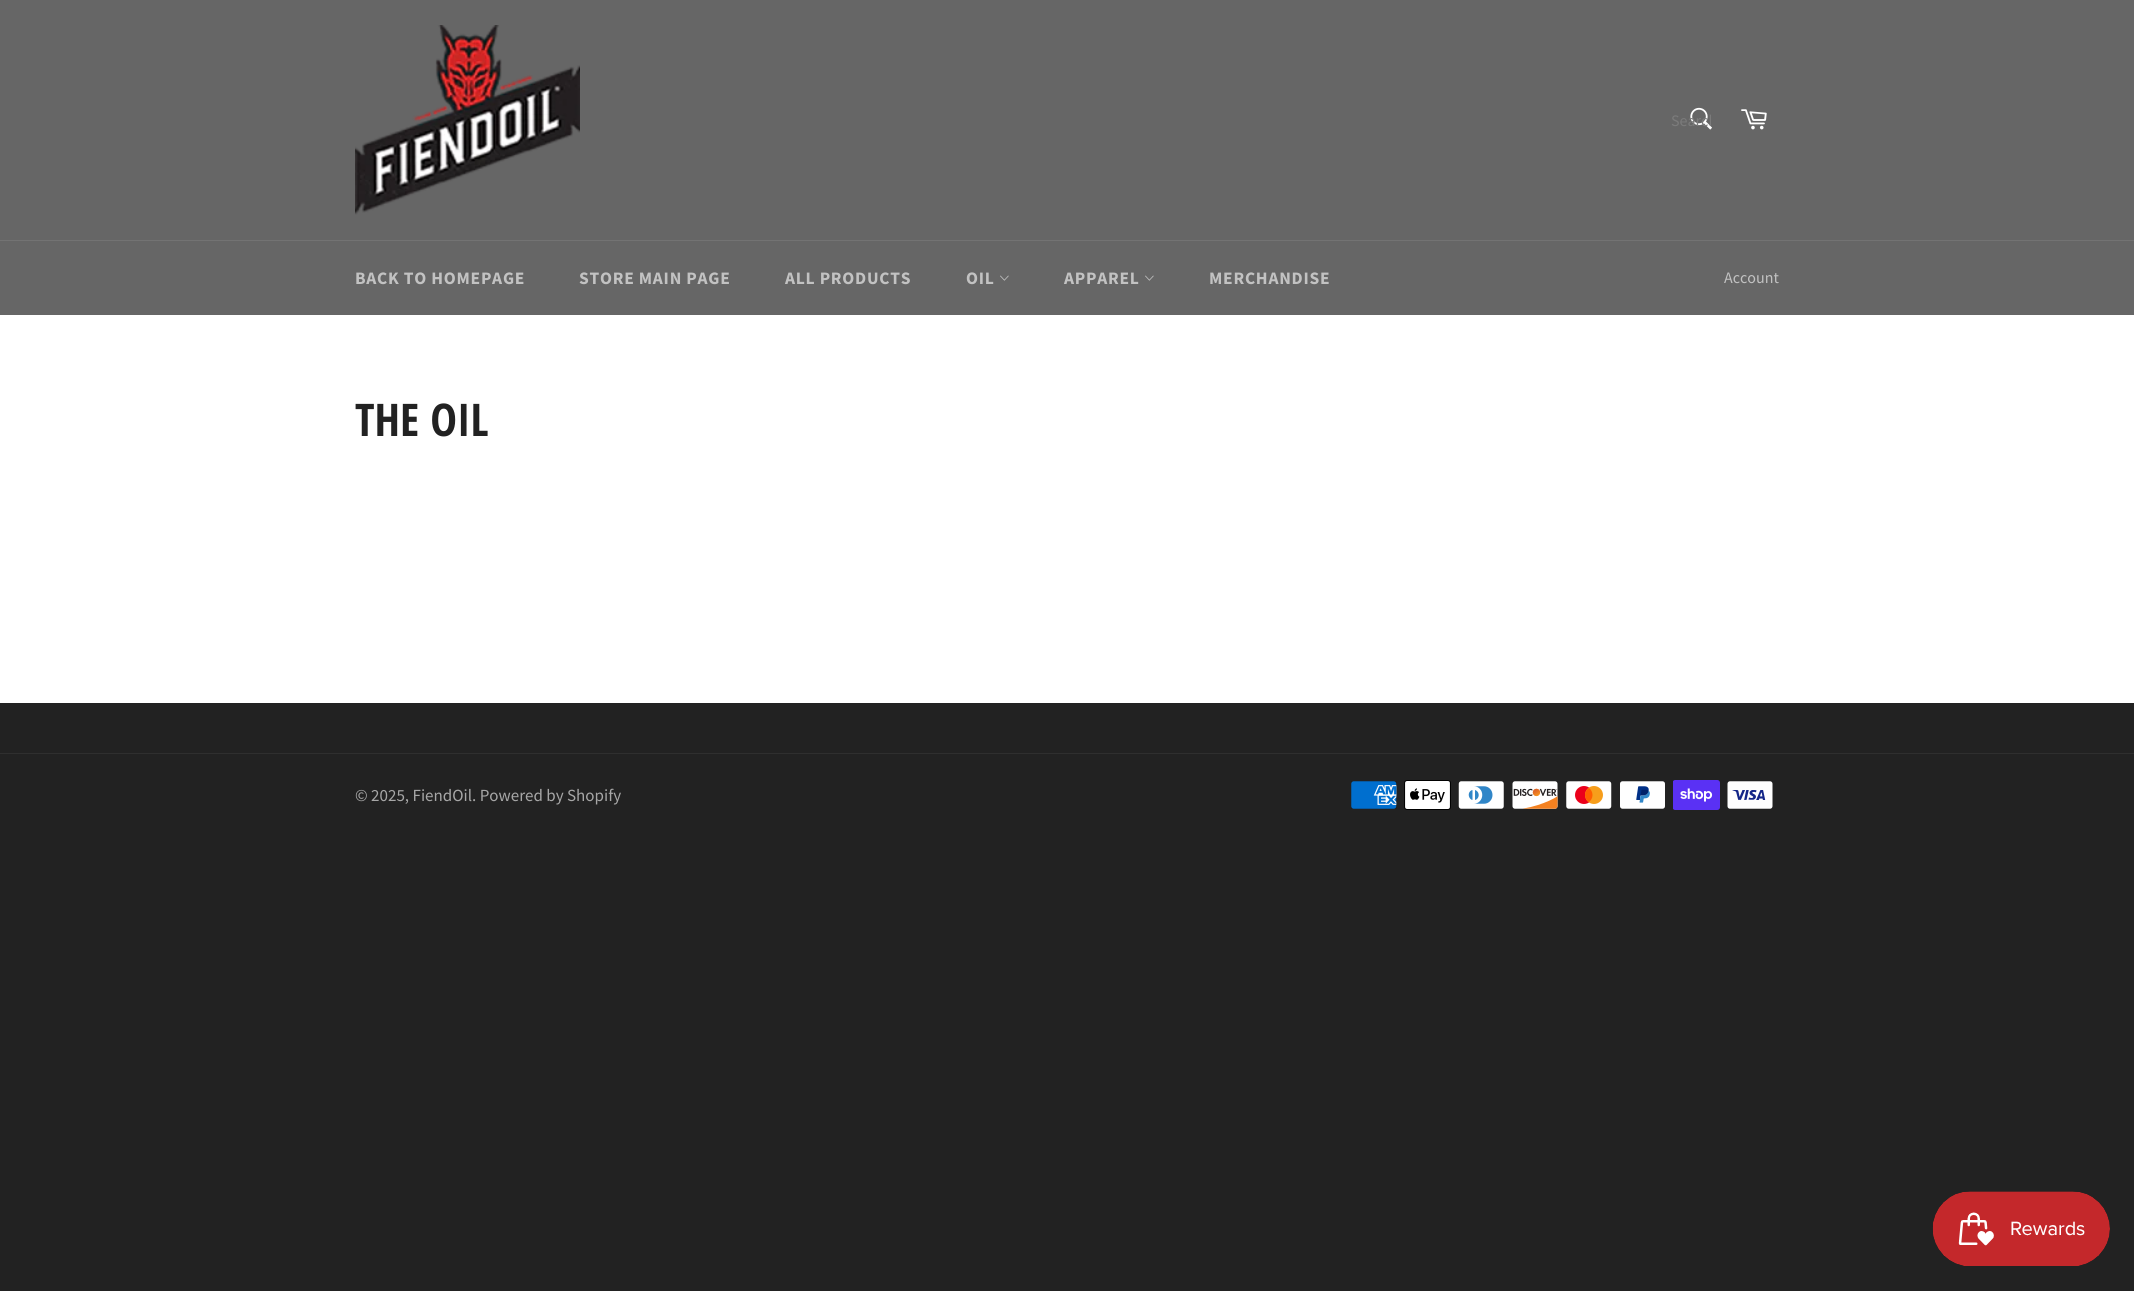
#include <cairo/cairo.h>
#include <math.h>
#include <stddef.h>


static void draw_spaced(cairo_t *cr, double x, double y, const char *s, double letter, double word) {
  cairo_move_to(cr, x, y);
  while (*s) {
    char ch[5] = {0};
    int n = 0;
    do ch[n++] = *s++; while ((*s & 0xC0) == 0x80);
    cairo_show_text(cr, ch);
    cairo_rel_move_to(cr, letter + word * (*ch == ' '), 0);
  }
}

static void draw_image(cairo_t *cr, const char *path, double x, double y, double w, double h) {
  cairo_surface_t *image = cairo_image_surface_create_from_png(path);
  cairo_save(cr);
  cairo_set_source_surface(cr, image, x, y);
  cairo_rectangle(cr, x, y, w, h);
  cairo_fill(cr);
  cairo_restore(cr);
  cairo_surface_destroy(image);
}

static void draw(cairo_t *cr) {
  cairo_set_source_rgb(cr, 34 / 255.0, 34 / 255.0, 34 / 255.0);
  cairo_paint(cr);
  cairo_set_source_rgb(cr, 1, 1, 1);
  cairo_rectangle(cr, 0, 315, 2134, 388);
  cairo_fill(cr);
  cairo_set_source_rgb(cr, 102 / 255.0, 102 / 255.0, 102 / 255.0);
  cairo_rectangle(cr, 0, 0, 2134, 240);
  cairo_fill(cr);
  draw_image(cr, "images/1.png", 355, 25, 225, 190);
  draw_image(cr, "images/2.png", 1690, 107, 22, 23);
  draw_image(cr, "images/3.png", 1741, 109, 26, 21);
  cairo_rectangle(cr, 0, 241, 2134, 74);
  cairo_fill(cr);
  cairo_set_source_rgb(cr, 115 / 255.0, 115 / 255.0, 115 / 255.0);
  cairo_rectangle(cr, 0, 240, 2134, 1);
  cairo_fill(cr);
  draw_image(cr, "images/4.png", 1000, 275, 9, 6);
  draw_image(cr, "images/4.png", 1145, 275, 9, 6);
  cairo_set_source_rgb(cr, 47 / 255.0, 47 / 255.0, 47 / 255.0);
  cairo_rectangle(cr, 0, 753, 2134, 1);
  cairo_fill(cr);
  draw_image(cr, "images/5.png", 1351, 781, 46, 28);
  draw_image(cr, "images/6.png", 1404, 780, 47, 30);
  draw_image(cr, "images/7.png", 1458, 781, 46, 28);
  draw_image(cr, "images/8.png", 1512, 781, 46, 28);
  draw_image(cr, "images/9.png", 1566, 781, 46, 28);
  draw_image(cr, "images/10.png", 1620, 781, 45, 28);
  draw_image(cr, "images/11.png", 1673, 780, 47, 30);
  draw_image(cr, "images/12.png", 1727, 781, 46, 28);
  draw_image(cr, "images/13.png", 1932, 1191, 178, 75);
  cairo_save(cr);
  cairo_rectangle(cr, 1671, 110, 40, 21);
  cairo_clip(cr);
  cairo_select_font_face(cr, "Source Sans Pro", CAIRO_FONT_SLANT_NORMAL, CAIRO_FONT_WEIGHT_NORMAL);
  cairo_set_font_size(cr, 16);
  cairo_set_source_rgb(cr, 123 / 255.0, 123 / 255.0, 123 / 255.0);
  cairo_move_to(cr, 1671, 126);
  cairo_show_text(cr, "Search");
  cairo_restore(cr);
  cairo_select_font_face(cr, "Source Sans Pro", CAIRO_FONT_SLANT_NORMAL, CAIRO_FONT_WEIGHT_BOLD);
  cairo_set_font_size(cr, 17.5);
  cairo_set_source_rgb(cr, 194 / 255.0, 194 / 255.0, 194 / 255.0);
  draw_spaced(cr, 355, 284, "BACK TO HOMEPAGE", 0.75, 0);
  draw_spaced(cr, 579, 284, "STORE MAIN PAGE", 0.75, 0);
  draw_spaced(cr, 785, 284, "ALL PRODUCTS", 0.75, 0);
  draw_spaced(cr, 966, 284, "OIL", 0.75, 0);
  draw_spaced(cr, 1064, 284, "APPAREL", 0.75, 0);
  draw_spaced(cr, 1209, 284, "MERCHANDISE", 0.75, 0);
  cairo_select_font_face(cr, "Source Sans Pro", CAIRO_FONT_SLANT_NORMAL, CAIRO_FONT_WEIGHT_NORMAL);
  cairo_set_font_size(cr, 16);
  cairo_move_to(cr, 1724, 283);
  cairo_show_text(cr, "Account");
  cairo_select_font_face(cr, "Open Sans Condensed", CAIRO_FONT_SLANT_NORMAL, CAIRO_FONT_WEIGHT_BOLD);
  cairo_set_font_size(cr, 45);
  cairo_set_source_rgb(cr, 34 / 255.0, 34 / 255.0, 34 / 255.0);
  cairo_move_to(cr, 355, 436);
  cairo_show_text(cr, "THE OIL");
  cairo_select_font_face(cr, "Source Sans Pro", CAIRO_FONT_SLANT_NORMAL, CAIRO_FONT_WEIGHT_NORMAL);
  cairo_set_font_size(cr, 17);
  cairo_set_source_rgb(cr, 167 / 255.0, 167 / 255.0, 167 / 255.0);
  cairo_move_to(cr, 355, 801);
  cairo_show_text(cr, "© 2025, FiendOil. Powered by Shopify");
}

int main(void) {
  cairo_surface_t *surface = cairo_image_surface_create(CAIRO_FORMAT_RGB24, 2134, 1291);
  cairo_t *cr = cairo_create(surface);
  cairo_font_options_t *options = cairo_font_options_create();
  cairo_font_options_set_hint_metrics(options, CAIRO_HINT_METRICS_OFF);
  cairo_font_options_set_hint_style(options, CAIRO_HINT_STYLE_NONE);
  cairo_set_font_options(cr, options);
  cairo_set_miter_limit(cr, 4);
  draw(cr);
  cairo_surface_write_to_png(surface, "out.png");
  cairo_font_options_destroy(options);
  cairo_destroy(cr);
  cairo_surface_destroy(surface);
  return 0;
}
